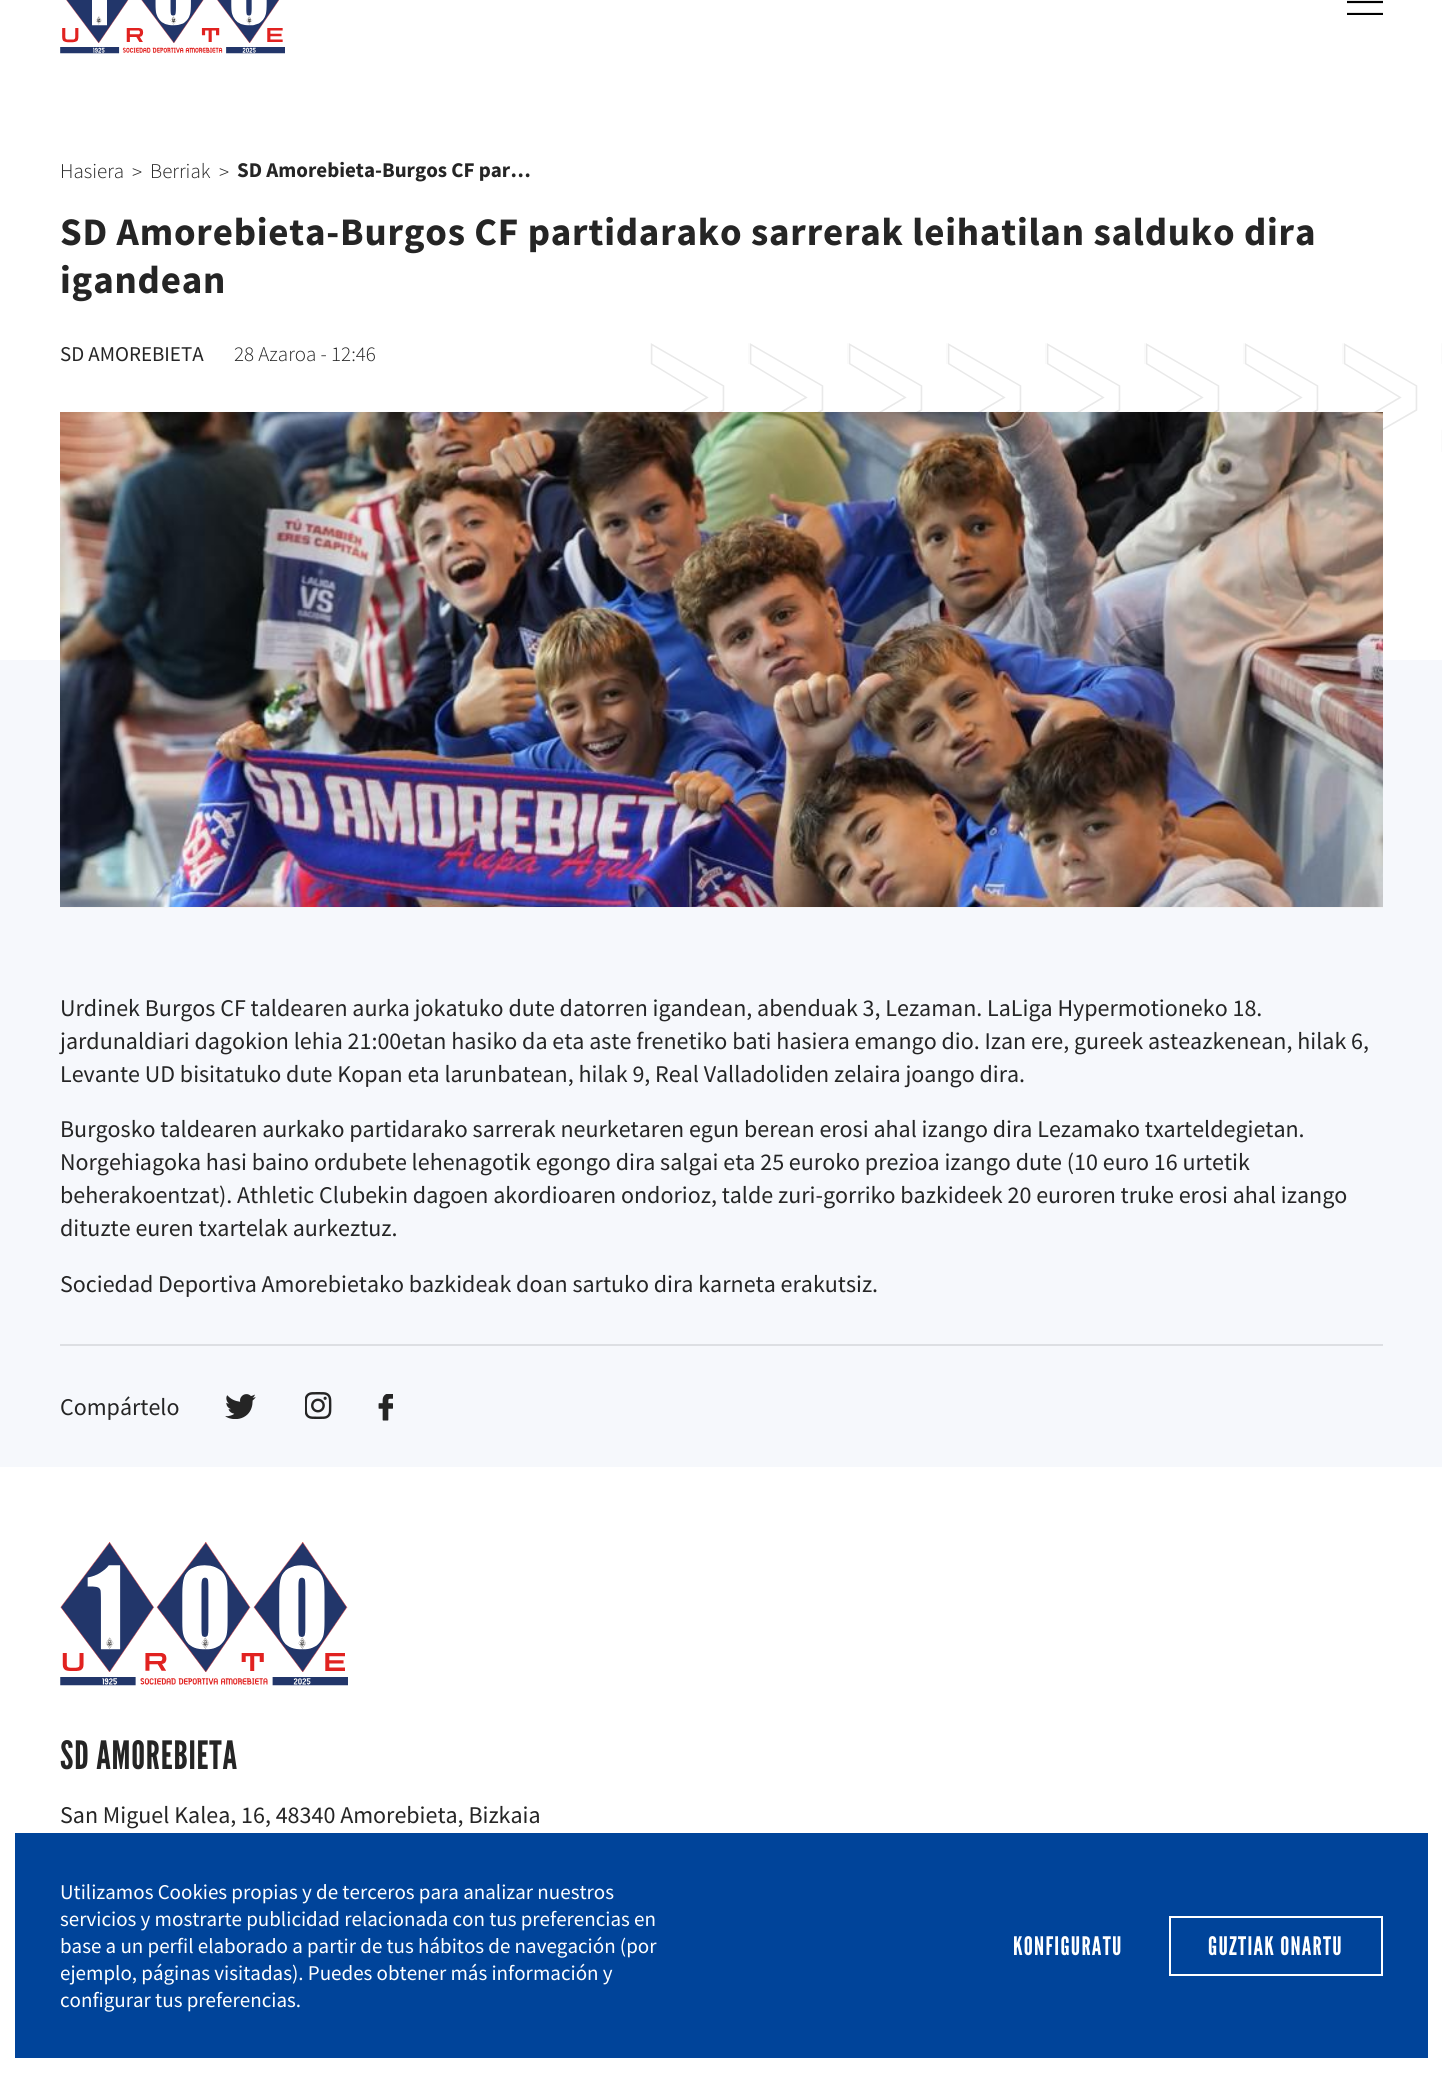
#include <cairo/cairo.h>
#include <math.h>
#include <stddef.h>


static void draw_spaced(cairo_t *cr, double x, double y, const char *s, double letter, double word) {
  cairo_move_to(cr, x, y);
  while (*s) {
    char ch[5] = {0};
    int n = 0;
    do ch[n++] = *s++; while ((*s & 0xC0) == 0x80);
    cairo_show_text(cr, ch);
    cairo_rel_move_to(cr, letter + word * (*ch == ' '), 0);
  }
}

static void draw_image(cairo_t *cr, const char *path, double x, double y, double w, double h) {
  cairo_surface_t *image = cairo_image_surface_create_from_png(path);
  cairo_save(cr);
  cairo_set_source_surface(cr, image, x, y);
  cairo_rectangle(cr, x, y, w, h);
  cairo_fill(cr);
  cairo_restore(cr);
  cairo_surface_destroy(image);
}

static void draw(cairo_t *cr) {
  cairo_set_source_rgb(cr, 1, 1, 1);
  cairo_paint(cr);
  draw_image(cr, "images/1.png", 60, 0, 225, 54);
  cairo_save(cr);
  cairo_rectangle(cr, 1347, 0, 36, 15);
  cairo_clip(cr);
  cairo_new_path(cr);
  cairo_move_to(cr, 1347, -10);
  cairo_line_to(cr, 1383, -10);
  cairo_move_to(cr, 1347, 2);
  cairo_line_to(cr, 1383, 2);
  cairo_move_to(cr, 1347, 14);
  cairo_line_to(cr, 1383, 14);
  cairo_set_source_rgb(cr, 0, 0, 0);
  cairo_set_line_width(cr, 2.2);
  cairo_stroke(cr);
  cairo_restore(cr);
  draw_image(cr, "images/2.png", 650, 343, 792, 109);
  cairo_set_source_rgb(cr, 246 / 255.0, 248 / 255.0, 252 / 255.0);
  cairo_rectangle(cr, 0, 660, 1442, 807);
  cairo_fill(cr);
  cairo_set_source_rgb(cr, 244 / 255.0, 244 / 255.0, 244 / 255.0);
  cairo_rectangle(cr, 60, 907, 1323, 1);
  cairo_fill(cr);
  draw_image(cr, "images/3.png", 60, 412, 1323, 495);
  cairo_set_source_rgb(cr, 221 / 255.0, 223 / 255.0, 227 / 255.0);
  cairo_rectangle(cr, 60, 1344, 1323, 2);
  cairo_fill(cr);
  draw_image(cr, "images/4.png", 225, 1394, 31, 25);
  draw_image(cr, "images/5.png", 305, 1392, 27, 27);
  draw_image(cr, "images/6.png", 378, 1394, 15, 27);
  draw_image(cr, "images/7.png", 60, 1542, 288, 144);
  cairo_set_source_rgb(cr, 0, 68 / 255.0, 154 / 255.0);
  cairo_rectangle(cr, 15, 1833, 1413, 225);
  cairo_fill(cr);
  cairo_rectangle(cr, 1170, 1917, 212, 58);
  cairo_set_source_rgb(cr, 1, 1, 1);
  cairo_stroke(cr);
  cairo_select_font_face(cr, "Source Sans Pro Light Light", CAIRO_FONT_SLANT_NORMAL, CAIRO_FONT_WEIGHT_NORMAL);
  cairo_set_font_size(cr, 21);
  cairo_set_source_rgb(cr, 37 / 255.0, 37 / 255.0, 37 / 255.0);
  cairo_move_to(cr, 60, 178);
  cairo_show_text(cr, "Hasiera");
  cairo_move_to(cr, 132, 179);
  cairo_show_text(cr, ">");
  cairo_move_to(cr, 150, 178);
  cairo_show_text(cr, "Berriak");
  cairo_move_to(cr, 219, 179);
  cairo_show_text(cr, ">");
  cairo_select_font_face(cr, "Source Sans Pro", CAIRO_FONT_SLANT_NORMAL, CAIRO_FONT_WEIGHT_BOLD);
  cairo_move_to(cr, 237, 177);
  cairo_show_text(cr, "SD Amorebieta-Burgos CF par…");
  cairo_set_font_size(cr, 39);
  draw_spaced(cr, 60, 245, "SD Amorebieta-Burgos CF partidarako sarrerak leihatilan salduko dira", 0.78, 0);
  draw_spaced(cr, 60, 293, "igandean", 0.78, 0);
  cairo_select_font_face(cr, "Source Sans Pro", CAIRO_FONT_SLANT_NORMAL, CAIRO_FONT_WEIGHT_NORMAL);
  cairo_set_font_size(cr, 21);
  cairo_move_to(cr, 60, 361);
  cairo_show_text(cr, "SD AMOREBIETA");
  cairo_select_font_face(cr, "Source Sans Pro Light Light", CAIRO_FONT_SLANT_NORMAL, CAIRO_FONT_WEIGHT_NORMAL);
  cairo_move_to(cr, 234, 361);
  cairo_show_text(cr, "28 Azaroa - 12:46");
  cairo_select_font_face(cr, "Source Sans Pro", CAIRO_FONT_SLANT_NORMAL, CAIRO_FONT_WEIGHT_NORMAL);
  cairo_set_font_size(cr, 24);
  cairo_move_to(cr, 60, 1016);
  cairo_show_text(cr, "Urdinek Burgos CF taldearen aurka jokatuko dute datorren igandean, abenduak 3, Lezaman. LaLiga Hypermotioneko 18.");
  cairo_move_to(cr, 60, 1049);
  cairo_show_text(cr, "jardunaldiari dagokion lehia 21:00etan hasiko da eta aste frenetiko bati hasiera emango dio. Izan ere, gureek asteazkenean, hilak 6,");
  cairo_move_to(cr, 60, 1082);
  cairo_show_text(cr, "Levante UD bisitatuko dute Kopan eta larunbatean, hilak 9, Real Valladoliden zelaira joango dira.");
  cairo_move_to(cr, 60, 1137);
  cairo_show_text(cr, "Burgosko taldearen aurkako partidarako sarrerak neurketaren egun berean erosi ahal izango dira Lezamako txarteldegietan.");
  cairo_move_to(cr, 60, 1170);
  cairo_show_text(cr, "Norgehiagoka hasi baino ordubete lehenagotik egongo dira salgai eta 25 euroko prezioa izango dute (10 euro 16 urtetik");
  cairo_move_to(cr, 60, 1203);
  cairo_show_text(cr, "beherakoentzat). Athletic Clubekin dagoen akordioaren ondorioz, talde zuri-gorriko bazkideek 20 euroren truke erosi ahal izango");
  cairo_move_to(cr, 60, 1236);
  cairo_show_text(cr, "dituzte euren txartelak aurkeztuz.");
  cairo_move_to(cr, 60, 1292);
  cairo_show_text(cr, "Sociedad Deportiva Amorebietako bazkideak doan sartuko dira karneta erakutsiz.");
  cairo_move_to(cr, 60, 1415);
  cairo_show_text(cr, "Compártelo");
  cairo_select_font_face(cr, "League Gothic", CAIRO_FONT_SLANT_NORMAL, CAIRO_FONT_WEIGHT_NORMAL);
  cairo_set_font_size(cr, 39);
  draw_spaced(cr, 60, 1769, "SD AMOREBIETA", 0.78, 0);
  cairo_select_font_face(cr, "Source Sans Pro", CAIRO_FONT_SLANT_NORMAL, CAIRO_FONT_WEIGHT_NORMAL);
  cairo_set_font_size(cr, 24);
  cairo_move_to(cr, 60, 1823);
  cairo_show_text(cr, "San Miguel Kalea, 16, 48340 Amorebieta, Bizkaia");
  cairo_set_font_size(cr, 21);
  cairo_set_source_rgb(cr, 1, 1, 1);
  cairo_move_to(cr, 60, 1899);
  cairo_show_text(cr, "Utilizamos Cookies propias y de terceros para analizar nuestros");
  cairo_move_to(cr, 60, 1926);
  cairo_show_text(cr, "servicios y mostrarte publicidad relacionada con tus preferencias en");
  cairo_move_to(cr, 60, 1953);
  cairo_show_text(cr, "base a un perfil elaborado a partir de tus hábitos de navegación (por");
  cairo_move_to(cr, 60, 1980);
  cairo_show_text(cr, "ejemplo, páginas visitadas). Puedes obtener más información y");
  cairo_move_to(cr, 60, 2007);
  cairo_show_text(cr, "configurar tus preferencias.");
  cairo_select_font_face(cr, "League Gothic", CAIRO_FONT_SLANT_NORMAL, CAIRO_FONT_WEIGHT_NORMAL);
  cairo_set_font_size(cr, 25.5);
  draw_spaced(cr, 1013, 1955, "KONFIGURATU", 1.25, 0);
  draw_spaced(cr, 1208, 1955, "GUZTIAK ONARTU", 1.25, 0);
}

int main(void) {
  cairo_surface_t *surface = cairo_image_surface_create(CAIRO_FORMAT_RGB24, 1442, 2073);
  cairo_t *cr = cairo_create(surface);
  cairo_font_options_t *options = cairo_font_options_create();
  cairo_font_options_set_hint_metrics(options, CAIRO_HINT_METRICS_OFF);
  cairo_font_options_set_hint_style(options, CAIRO_HINT_STYLE_NONE);
  cairo_set_font_options(cr, options);
  cairo_set_miter_limit(cr, 4);
  draw(cr);
  cairo_surface_write_to_png(surface, "out.png");
  cairo_font_options_destroy(options);
  cairo_destroy(cr);
  cairo_surface_destroy(surface);
  return 0;
}
